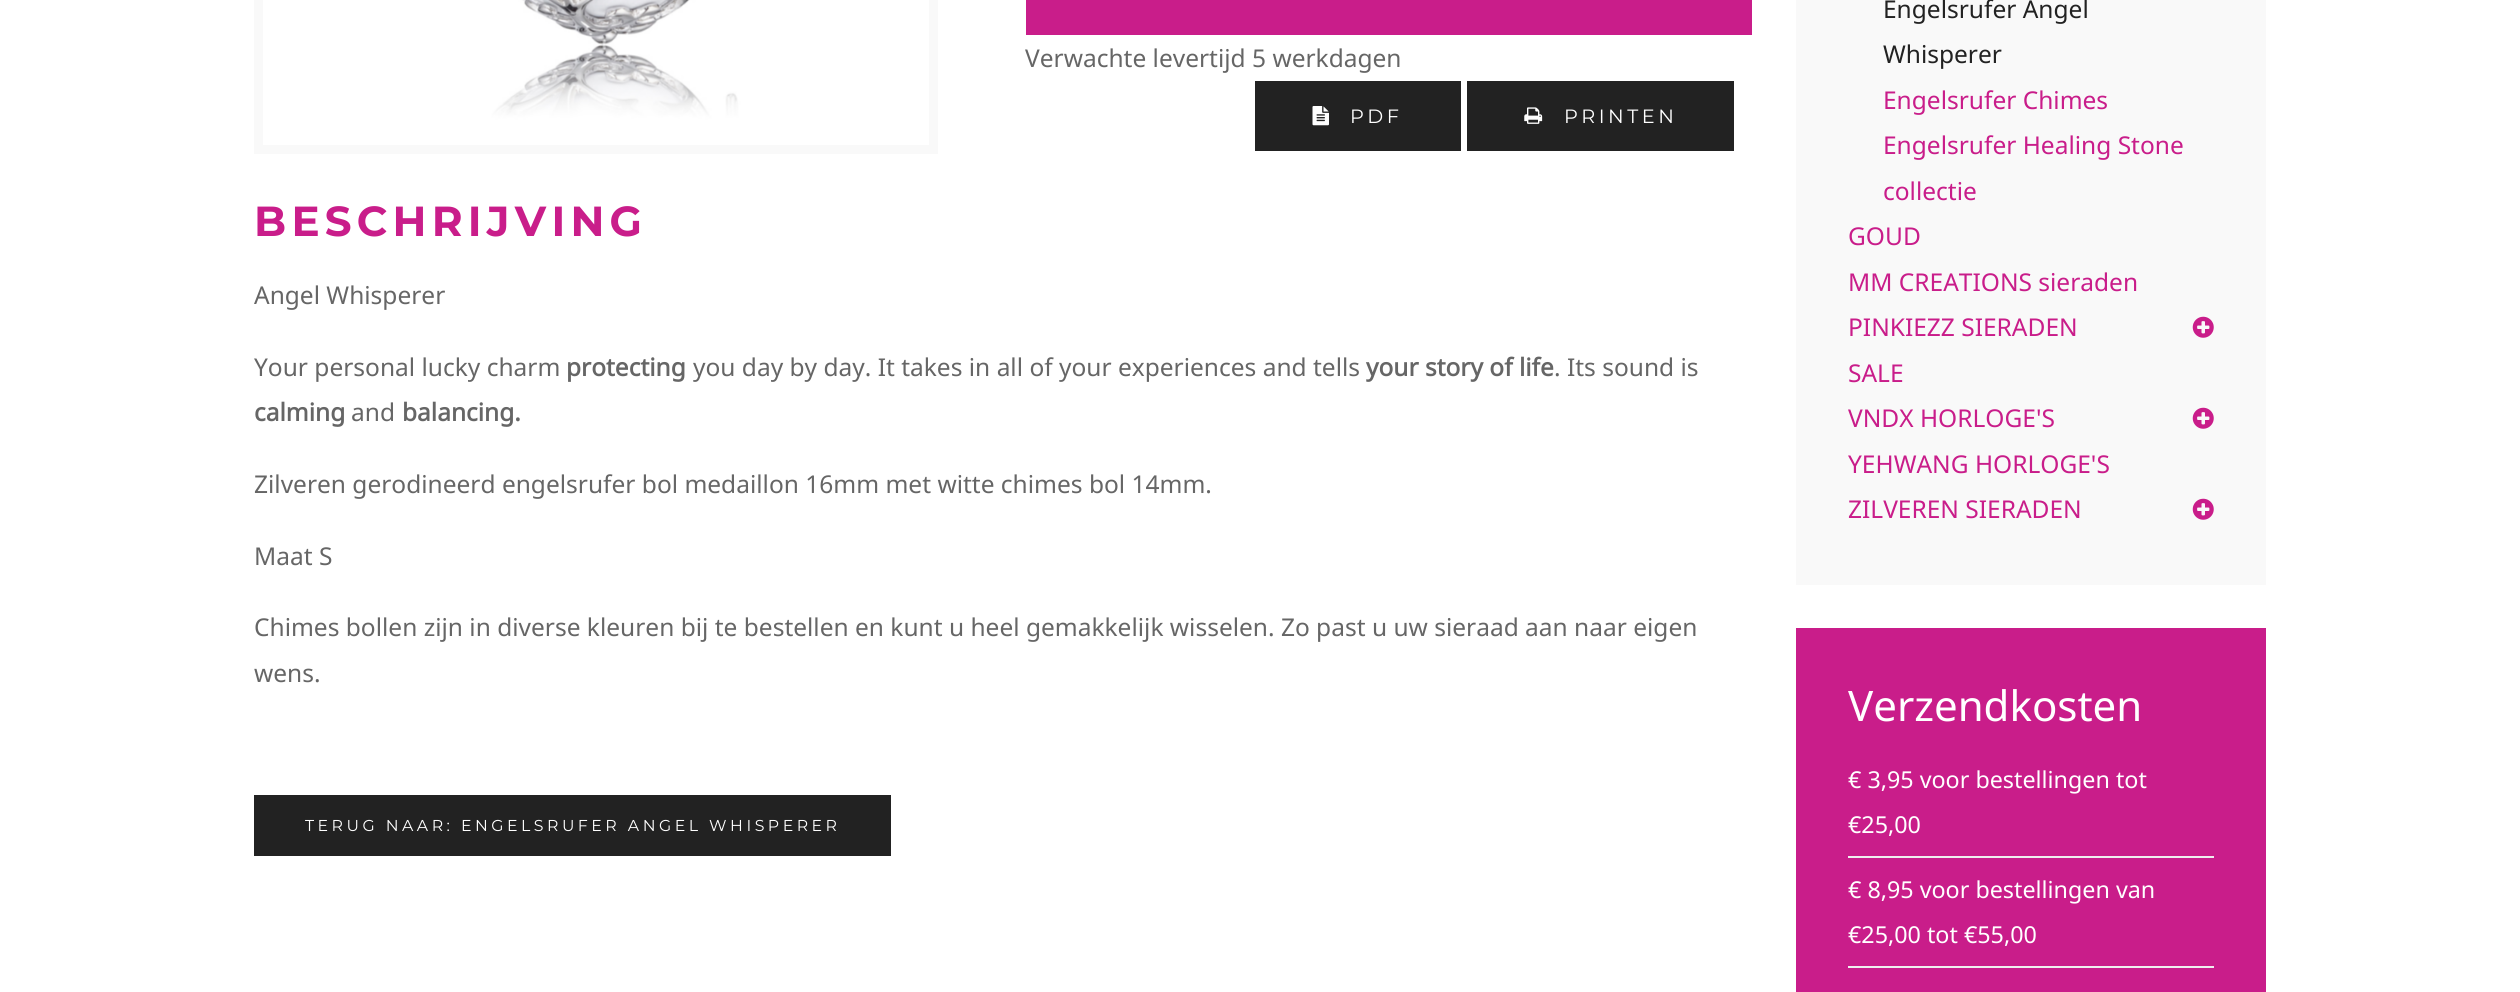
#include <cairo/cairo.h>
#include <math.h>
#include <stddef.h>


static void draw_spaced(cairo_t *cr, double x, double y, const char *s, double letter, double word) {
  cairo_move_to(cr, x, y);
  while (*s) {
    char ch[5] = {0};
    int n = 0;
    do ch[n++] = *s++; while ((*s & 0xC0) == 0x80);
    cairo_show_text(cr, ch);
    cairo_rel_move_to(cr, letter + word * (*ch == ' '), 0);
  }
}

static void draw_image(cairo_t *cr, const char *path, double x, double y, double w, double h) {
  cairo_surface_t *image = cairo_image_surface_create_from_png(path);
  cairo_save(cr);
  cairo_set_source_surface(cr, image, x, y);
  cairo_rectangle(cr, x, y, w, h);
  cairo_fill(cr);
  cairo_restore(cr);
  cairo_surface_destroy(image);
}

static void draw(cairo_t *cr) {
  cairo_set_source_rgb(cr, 1, 1, 1);
  cairo_paint(cr);
  cairo_set_source_rgb(cr, 249 / 255.0, 249 / 255.0, 249 / 255.0);
  cairo_rectangle(cr, 254, 0, 684, 154);
  cairo_fill(cr);
  draw_image(cr, "images/1.png", 263, 0, 666, 145);
  cairo_set_source_rgb(cr, 201 / 255.0, 29 / 255.0, 138 / 255.0);
  cairo_rectangle(cr, 1026, 0, 726, 35);
  cairo_fill(cr);
  cairo_set_source_rgb(cr, 34 / 255.0, 34 / 255.0, 34 / 255.0);
  cairo_rectangle(cr, 1255, 81, 206, 70);
  cairo_fill(cr);
  draw_image(cr, "images/2.png", 1312, 106, 17, 20);
  cairo_rectangle(cr, 1467, 81, 267, 70);
  cairo_fill(cr);
  draw_image(cr, "images/3.png", 1524, 107, 19, 17);
  cairo_rectangle(cr, 254, 795, 637, 61);
  cairo_fill(cr);
  cairo_set_source_rgb(cr, 249 / 255.0, 249 / 255.0, 249 / 255.0);
  cairo_rectangle(cr, 1796, 0, 470, 585);
  cairo_fill(cr);
  draw_image(cr, "images/4.png", 2192, 316, 22, 22);
  draw_image(cr, "images/4.png", 2192, 407, 22, 22);
  draw_image(cr, "images/4.png", 2192, 498, 22, 22);
  cairo_set_source_rgb(cr, 201 / 255.0, 29 / 255.0, 138 / 255.0);
  cairo_rectangle(cr, 1796, 628, 470, 364);
  cairo_fill(cr);
  cairo_set_source_rgb(cr, 239 / 255.0, 239 / 255.0, 239 / 255.0);
  cairo_rectangle(cr, 1848, 856, 366, 2);
  cairo_fill(cr);
  cairo_rectangle(cr, 1848, 966, 366, 2);
  cairo_fill(cr);
  cairo_select_font_face(cr, "Noto Sans", CAIRO_FONT_SLANT_NORMAL, CAIRO_FONT_WEIGHT_NORMAL);
  cairo_set_font_size(cr, 24.5);
  cairo_set_source_rgb(cr, 102 / 255.0, 102 / 255.0, 102 / 255.0);
  cairo_move_to(cr, 1025, 67);
  cairo_show_text(cr, "Verwachte levertijd 5 werkdagen");
  cairo_select_font_face(cr, "Montserrat", CAIRO_FONT_SLANT_NORMAL, CAIRO_FONT_WEIGHT_NORMAL);
  cairo_set_font_size(cr, 19.25);
  cairo_set_source_rgb(cr, 1, 1, 1);
  draw_spaced(cr, 1350, 123, "PDF", 3.5, 0);
  draw_spaced(cr, 1564, 123, "PRINTEN", 3.5, 0);
  cairo_select_font_face(cr, "Montserrat", CAIRO_FONT_SLANT_NORMAL, CAIRO_FONT_WEIGHT_BOLD);
  cairo_set_font_size(cr, 42);
  cairo_set_source_rgb(cr, 201 / 255.0, 29 / 255.0, 138 / 255.0);
  draw_spaced(cr, 254, 236, "BESCHRIJVING", 5.25, 0);
  cairo_select_font_face(cr, "Noto Sans", CAIRO_FONT_SLANT_NORMAL, CAIRO_FONT_WEIGHT_NORMAL);
  cairo_set_font_size(cr, 24.5);
  cairo_set_source_rgb(cr, 102 / 255.0, 102 / 255.0, 102 / 255.0);
  cairo_move_to(cr, 254, 304);
  cairo_show_text(cr, "Angel Whisperer");
  cairo_move_to(cr, 254, 376);
  cairo_show_text(cr, "Your personal lucky charm");
  cairo_select_font_face(cr, "Noto Sans", CAIRO_FONT_SLANT_NORMAL, CAIRO_FONT_WEIGHT_BOLD);
  cairo_move_to(cr, 566, 376);
  cairo_show_text(cr, "protecting");
  cairo_select_font_face(cr, "Noto Sans", CAIRO_FONT_SLANT_NORMAL, CAIRO_FONT_WEIGHT_NORMAL);
  cairo_move_to(cr, 693, 376);
  cairo_show_text(cr, "you day by day. It takes in all of your experiences and tells");
  cairo_select_font_face(cr, "Noto Sans", CAIRO_FONT_SLANT_NORMAL, CAIRO_FONT_WEIGHT_BOLD);
  cairo_move_to(cr, 1366, 376);
  cairo_show_text(cr, "your story of life");
  cairo_select_font_face(cr, "Noto Sans", CAIRO_FONT_SLANT_NORMAL, CAIRO_FONT_WEIGHT_NORMAL);
  cairo_move_to(cr, 1554, 376);
  cairo_show_text(cr, ". Its sound is");
  cairo_select_font_face(cr, "Noto Sans", CAIRO_FONT_SLANT_NORMAL, CAIRO_FONT_WEIGHT_BOLD);
  cairo_move_to(cr, 254, 421);
  cairo_show_text(cr, "calming");
  cairo_select_font_face(cr, "Noto Sans", CAIRO_FONT_SLANT_NORMAL, CAIRO_FONT_WEIGHT_NORMAL);
  cairo_move_to(cr, 351, 421);
  cairo_show_text(cr, "and");
  cairo_select_font_face(cr, "Noto Sans", CAIRO_FONT_SLANT_NORMAL, CAIRO_FONT_WEIGHT_BOLD);
  cairo_move_to(cr, 402, 421);
  cairo_show_text(cr, "balancing.");
  cairo_select_font_face(cr, "Noto Sans", CAIRO_FONT_SLANT_NORMAL, CAIRO_FONT_WEIGHT_NORMAL);
  cairo_move_to(cr, 254, 493);
  cairo_show_text(cr, "Zilveren gerodineerd engelsrufer bol medaillon 16mm met witte chimes bol 14mm.");
  cairo_move_to(cr, 254, 565);
  cairo_show_text(cr, "Maat S");
  cairo_move_to(cr, 254, 636);
  cairo_show_text(cr, "Chimes bollen zijn in diverse kleuren bij te bestellen en kunt u heel gemakkelijk wisselen. Zo past u uw sieraad aan naar eigen");
  cairo_move_to(cr, 254, 682);
  cairo_show_text(cr, "wens.");
  cairo_select_font_face(cr, "Montserrat", CAIRO_FONT_SLANT_NORMAL, CAIRO_FONT_WEIGHT_NORMAL);
  cairo_set_font_size(cr, 15.75);
  cairo_set_source_rgb(cr, 1, 1, 1);
  draw_spaced(cr, 305, 831, "TERUG NAAR: ENGELSRUFER ANGEL WHISPERER", 3.5, 0);
  cairo_select_font_face(cr, "Noto Sans", CAIRO_FONT_SLANT_NORMAL, CAIRO_FONT_WEIGHT_NORMAL);
  cairo_set_font_size(cr, 24.5);
  cairo_set_source_rgb(cr, 34 / 255.0, 34 / 255.0, 34 / 255.0);
  cairo_move_to(cr, 1883, 18);
  cairo_show_text(cr, "Engelsrufer Angel");
  cairo_move_to(cr, 1883, 63);
  cairo_show_text(cr, "Whisperer");
  cairo_set_source_rgb(cr, 201 / 255.0, 29 / 255.0, 138 / 255.0);
  cairo_move_to(cr, 1883, 109);
  cairo_show_text(cr, "Engelsrufer Chimes");
  cairo_move_to(cr, 1883, 154);
  cairo_show_text(cr, "Engelsrufer Healing Stone");
  cairo_move_to(cr, 1883, 200);
  cairo_show_text(cr, "collectie");
  cairo_move_to(cr, 1848, 245);
  cairo_show_text(cr, "GOUD");
  cairo_move_to(cr, 1848, 291);
  cairo_show_text(cr, "MM CREATIONS sieraden");
  cairo_move_to(cr, 1848, 336);
  cairo_show_text(cr, "PINKIEZZ SIERADEN");
  cairo_move_to(cr, 1848, 382);
  cairo_show_text(cr, "SALE");
  cairo_move_to(cr, 1848, 427);
  cairo_show_text(cr, "VNDX HORLOGE'S");
  cairo_move_to(cr, 1848, 473);
  cairo_show_text(cr, "YEHWANG HORLOGE'S");
  cairo_move_to(cr, 1848, 518);
  cairo_show_text(cr, "ZILVEREN SIERADEN");
  cairo_set_font_size(cr, 42);
  cairo_set_source_rgb(cr, 1, 1, 1);
  cairo_move_to(cr, 1848, 721);
  cairo_show_text(cr, "Verzendkosten");
  cairo_set_font_size(cr, 23.3);
  cairo_move_to(cr, 1848, 788);
  cairo_show_text(cr, "€ 3,95 voor bestellingen tot");
  cairo_move_to(cr, 1848, 833);
  cairo_show_text(cr, "€25,00");
  cairo_move_to(cr, 1848, 898);
  cairo_show_text(cr, "€ 8,95 voor bestellingen van");
  cairo_move_to(cr, 1848, 943);
  cairo_show_text(cr, "€25,00 tot €55,00");
}

int main(void) {
  cairo_surface_t *surface = cairo_image_surface_create(CAIRO_FORMAT_RGB24, 2520, 992);
  cairo_t *cr = cairo_create(surface);
  cairo_font_options_t *options = cairo_font_options_create();
  cairo_font_options_set_hint_metrics(options, CAIRO_HINT_METRICS_OFF);
  cairo_font_options_set_hint_style(options, CAIRO_HINT_STYLE_NONE);
  cairo_set_font_options(cr, options);
  cairo_set_miter_limit(cr, 4);
  draw(cr);
  cairo_surface_write_to_png(surface, "out.png");
  cairo_font_options_destroy(options);
  cairo_destroy(cr);
  cairo_surface_destroy(surface);
  return 0;
}
